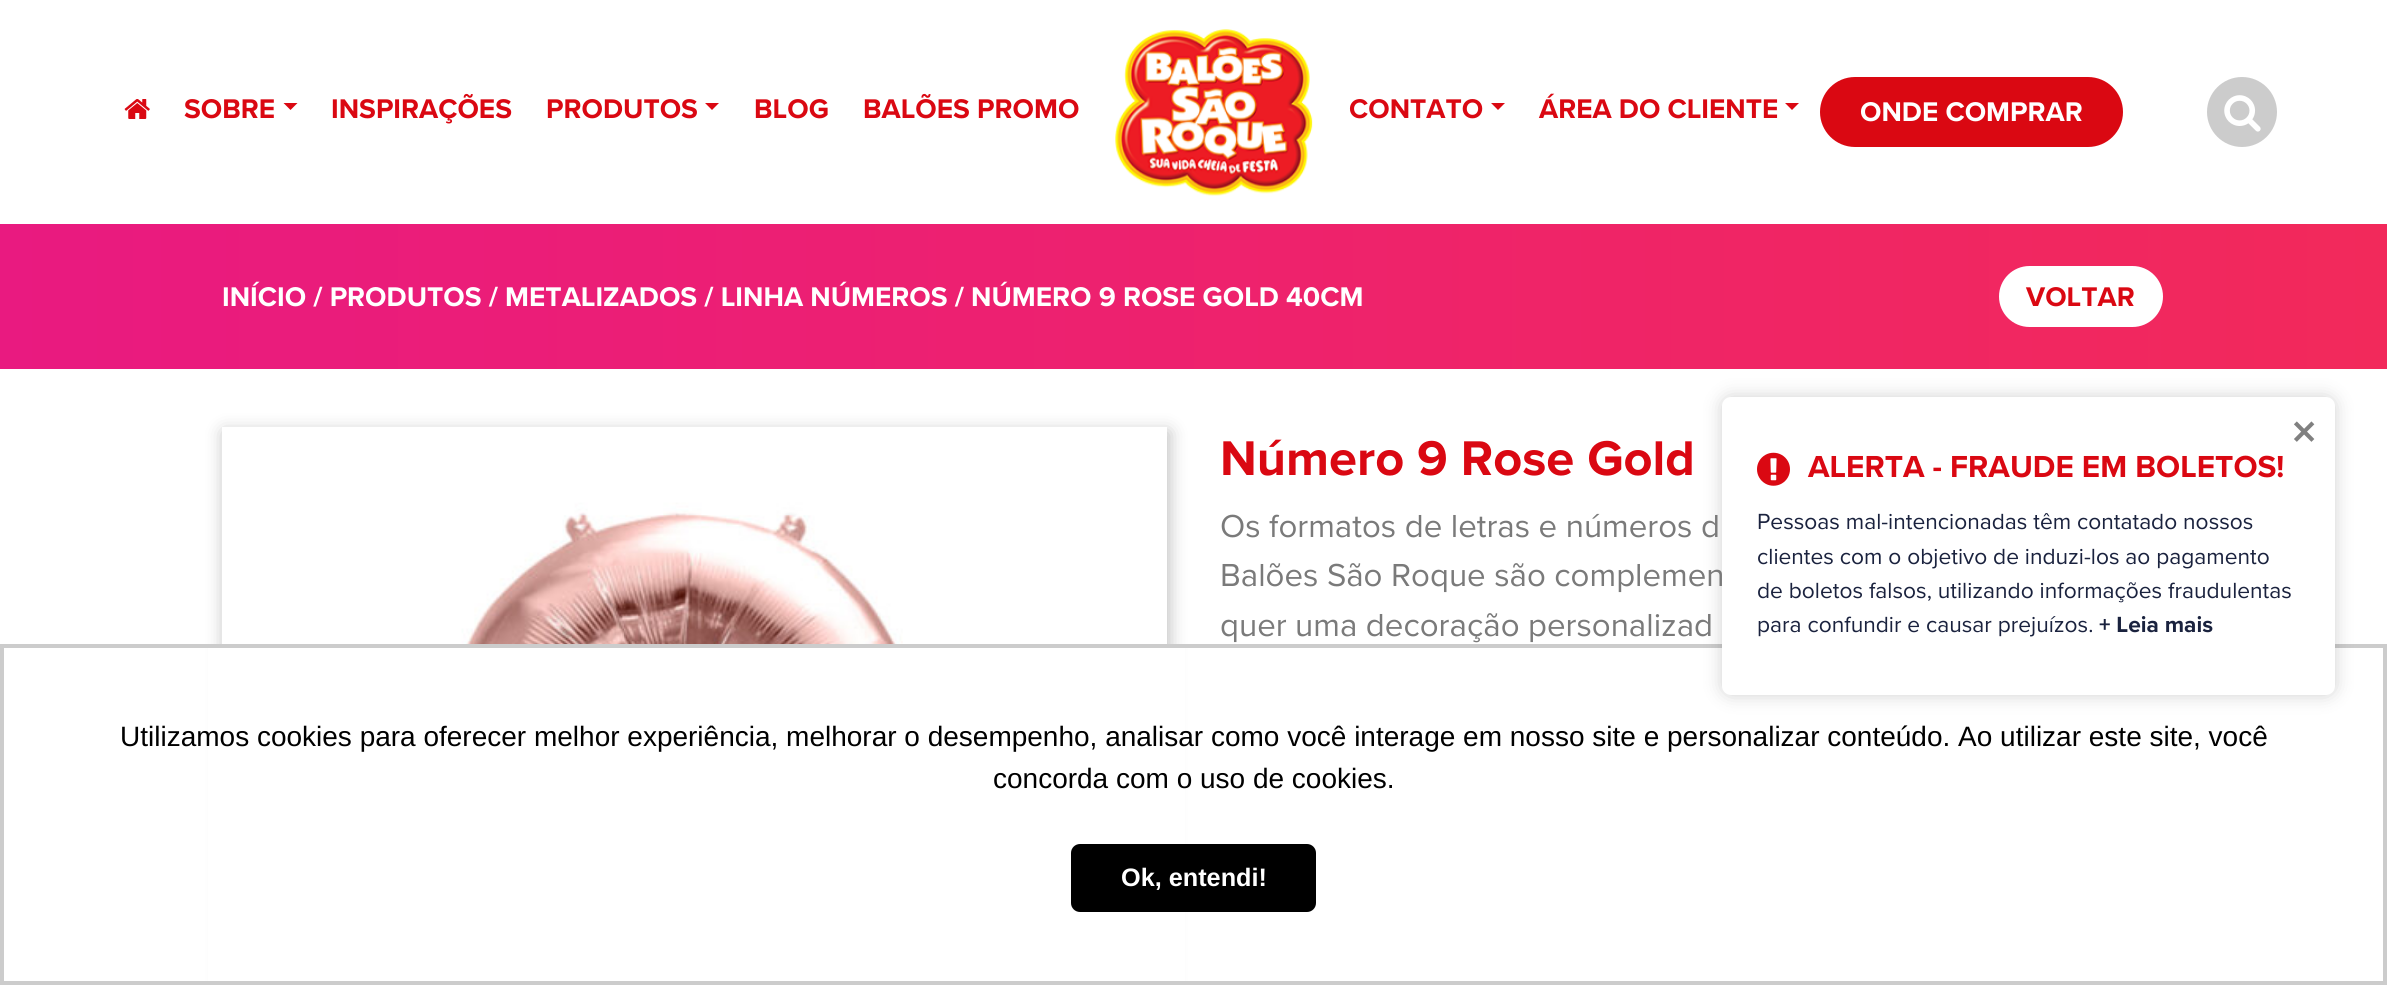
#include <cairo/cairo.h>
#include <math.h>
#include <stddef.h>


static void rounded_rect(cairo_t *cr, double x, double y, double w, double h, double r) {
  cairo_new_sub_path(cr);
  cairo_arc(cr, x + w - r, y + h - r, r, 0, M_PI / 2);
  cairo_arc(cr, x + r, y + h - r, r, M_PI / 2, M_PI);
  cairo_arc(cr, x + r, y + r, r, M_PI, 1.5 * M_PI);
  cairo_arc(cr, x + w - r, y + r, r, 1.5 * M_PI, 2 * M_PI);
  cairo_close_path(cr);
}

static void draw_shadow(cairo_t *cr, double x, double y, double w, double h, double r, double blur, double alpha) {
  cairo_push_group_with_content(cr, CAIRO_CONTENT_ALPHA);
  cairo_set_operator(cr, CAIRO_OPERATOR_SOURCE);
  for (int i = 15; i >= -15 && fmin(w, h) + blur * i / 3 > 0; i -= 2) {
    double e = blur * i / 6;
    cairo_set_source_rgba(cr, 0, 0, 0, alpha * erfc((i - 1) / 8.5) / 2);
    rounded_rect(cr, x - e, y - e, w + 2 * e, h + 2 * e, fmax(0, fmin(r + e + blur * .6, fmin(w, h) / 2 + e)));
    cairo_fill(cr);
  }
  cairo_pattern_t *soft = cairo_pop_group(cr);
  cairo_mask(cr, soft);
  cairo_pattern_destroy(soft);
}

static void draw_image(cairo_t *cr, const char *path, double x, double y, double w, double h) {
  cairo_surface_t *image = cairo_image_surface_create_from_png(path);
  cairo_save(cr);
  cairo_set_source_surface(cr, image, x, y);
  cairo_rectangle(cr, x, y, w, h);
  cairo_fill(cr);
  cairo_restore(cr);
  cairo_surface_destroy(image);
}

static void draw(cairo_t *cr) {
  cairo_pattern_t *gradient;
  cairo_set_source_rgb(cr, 1, 1, 1);
  cairo_paint(cr);
  draw_image(cr, "images/1.png", 124, 99, 26, 20);
  cairo_set_source_rgb(cr, 218 / 255.0, 8 / 255.0, 18 / 255.0);
  cairo_new_path(cr);
  cairo_move_to(cr, 283.5, 103);
  cairo_line_to(cr, 297.5, 103);
  cairo_line_to(cr, 290.5, 110);
  cairo_close_path(cr);
  cairo_fill(cr);
  cairo_new_path(cr);
  cairo_move_to(cr, 705, 103);
  cairo_line_to(cr, 719, 103);
  cairo_line_to(cr, 712, 110);
  cairo_close_path(cr);
  cairo_fill(cr);
  draw_image(cr, "images/2.png", 1115, 29, 198, 167);
  cairo_new_path(cr);
  cairo_move_to(cr, 1491, 103);
  cairo_line_to(cr, 1505, 103);
  cairo_line_to(cr, 1498, 110);
  cairo_close_path(cr);
  cairo_fill(cr);
  cairo_new_path(cr);
  cairo_move_to(cr, 1785, 103);
  cairo_line_to(cr, 1799, 103);
  cairo_line_to(cr, 1792, 110);
  cairo_close_path(cr);
  cairo_fill(cr);
  rounded_rect(cr, 1822.5, 79.5, 298, 65, 32.5);
  cairo_fill_preserve(cr);
  cairo_set_line_width(cr, 5);
  cairo_stroke(cr);
  cairo_set_source_rgb(cr, 204 / 255.0, 204 / 255.0, 204 / 255.0);
  cairo_arc(cr, 2242, 112, 35, 0, 2 * M_PI);
  cairo_fill(cr);
  draw_image(cr, "images/3.png", 2224, 95, 37, 37);
  gradient = cairo_pattern_create_linear(0, 297, 2387, 297);
  cairo_pattern_add_color_stop_rgba(gradient, 0, 233 / 255.0, 26 / 255.0, 128 / 255.0, 1);
  cairo_pattern_add_color_stop_rgba(gradient, 1, 242 / 255.0, 41 / 255.0, 91 / 255.0, 1);
  cairo_set_source(cr, gradient);
  cairo_pattern_destroy(gradient);
  cairo_rectangle(cr, 0, 224, 2387, 145);
  cairo_fill(cr);
  cairo_set_source_rgb(cr, 1, 1, 1);
  rounded_rect(cr, 1999, 266, 164, 61, 30.5);
  cairo_fill(cr);
  cairo_save(cr);
  cairo_set_fill_rule(cr, CAIRO_FILL_RULE_EVEN_ODD);
  cairo_new_path(cr);
  cairo_move_to(cr, 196, 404);
  cairo_line_to(cr, 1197, 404);
  cairo_line_to(cr, 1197, 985);
  cairo_line_to(cr, 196, 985);
  cairo_close_path(cr);
  cairo_move_to(cr, 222, 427);
  cairo_line_to(cr, 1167, 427);
  cairo_line_to(cr, 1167, 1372);
  cairo_line_to(cr, 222, 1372);
  cairo_close_path(cr);
  cairo_clip(cr);
  cairo_set_source_rgb(cr, 0, 0, 0);
  draw_shadow(cr, 224, 432, 945, 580, 0, 9, 0.27);
  cairo_restore(cr);
  draw_image(cr, "images/4.png", 222, 433, 721, 211);
  cairo_rectangle(cr, 208, 648, 977, 333);
  cairo_fill(cr);
  cairo_rectangle(cr, 2, 646, 2383, 337);
  cairo_set_source_rgb(cr, 204 / 255.0, 204 / 255.0, 204 / 255.0);
  cairo_set_line_width(cr, 4);
  cairo_stroke(cr);
  cairo_set_source_rgb(cr, 0, 0, 0);
  draw_shadow(cr, 1722, 397, 613, 298, 9, 9, 0.18);
  cairo_set_source_rgb(cr, 1, 1, 1);
  rounded_rect(cr, 1722, 397, 613, 298, 9);
  cairo_fill(cr);
  draw_image(cr, "images/5.png", 1757, 452, 33, 34);
  cairo_set_source_rgb(cr, 0, 0, 0);
  rounded_rect(cr, 1071, 844, 245, 68, 9);
  cairo_fill(cr);
  cairo_select_font_face(cr, "Proxima Nova", CAIRO_FONT_SLANT_NORMAL, CAIRO_FONT_WEIGHT_BOLD);
  cairo_set_font_size(cr, 28);
  cairo_set_source_rgb(cr, 218 / 255.0, 8 / 255.0, 18 / 255.0);
  cairo_move_to(cr, 184, 118);
  cairo_show_text(cr, "SOBRE");
  cairo_move_to(cr, 331, 118);
  cairo_show_text(cr, "INSPIRAÇÕES");
  cairo_move_to(cr, 546, 118);
  cairo_show_text(cr, "PRODUTOS");
  cairo_move_to(cr, 754, 118);
  cairo_show_text(cr, "BLOG");
  cairo_move_to(cr, 863, 118);
  cairo_show_text(cr, "BALÕES PROMO");
  cairo_move_to(cr, 1349, 118);
  cairo_show_text(cr, "CONTATO");
  cairo_move_to(cr, 1539, 118);
  cairo_show_text(cr, "ÁREA DO CLIENTE");
  cairo_set_source_rgb(cr, 1, 1, 1);
  cairo_move_to(cr, 1860, 121);
  cairo_show_text(cr, "ONDE COMPRAR");
  cairo_move_to(cr, 222, 306);
  cairo_show_text(cr, "INÍCIO / PRODUTOS / METALIZADOS / LINHA NÚMEROS / NÚMERO 9 ROSE GOLD 40CM");
  cairo_set_source_rgb(cr, 218 / 255.0, 8 / 255.0, 18 / 255.0);
  cairo_move_to(cr, 2026, 306);
  cairo_show_text(cr, "VOLTAR");
  cairo_set_font_size(cr, 50.5);
  cairo_move_to(cr, 1220, 475);
  cairo_show_text(cr, "Número 9 Rose Gold");
  cairo_select_font_face(cr, "Proxima Nova", CAIRO_FONT_SLANT_NORMAL, CAIRO_FONT_WEIGHT_NORMAL);
  cairo_set_font_size(cr, 33);
  cairo_set_source_rgb(cr, 122 / 255.0, 122 / 255.0, 122 / 255.0);
  cairo_move_to(cr, 1220, 537);
  cairo_show_text(cr, "Os formatos de letras e números d");
  cairo_move_to(cr, 1220, 586);
  cairo_show_text(cr, "Balões São Roque são complemen");
  cairo_move_to(cr, 1220, 636);
  cairo_show_text(cr, "quer uma decoração personalizad");
  cairo_select_font_face(cr, "Proxima Nova", CAIRO_FONT_SLANT_NORMAL, CAIRO_FONT_WEIGHT_BOLD);
  cairo_set_font_size(cr, 52);
  cairo_set_source_rgb(cr, 128 / 255.0, 128 / 255.0, 128 / 255.0);
  cairo_move_to(cr, 2291, 449);
  cairo_show_text(cr, "×");
  cairo_set_font_size(cr, 31.5);
  cairo_set_source_rgb(cr, 218 / 255.0, 8 / 255.0, 18 / 255.0);
  cairo_move_to(cr, 1808, 477);
  cairo_show_text(cr, "ALERTA - FRAUDE EM BOLETOS!");
  cairo_select_font_face(cr, "Proxima Nova", CAIRO_FONT_SLANT_NORMAL, CAIRO_FONT_WEIGHT_NORMAL);
  cairo_set_font_size(cr, 22.75);
  cairo_set_source_rgb(cr, 26 / 255.0, 34 / 255.0, 62 / 255.0);
  cairo_move_to(cr, 1757, 529);
  cairo_show_text(cr, "Pessoas mal-intencionadas têm contatado nossos");
  cairo_move_to(cr, 1757, 564);
  cairo_show_text(cr, "clientes com o objetivo de induzi-los ao pagamento");
  cairo_move_to(cr, 1757, 598);
  cairo_show_text(cr, "de boletos falsos, utilizando informações fraudulentas");
  cairo_move_to(cr, 1757, 632);
  cairo_show_text(cr, "para confundir e causar prejuízos.");
  cairo_select_font_face(cr, "Proxima Nova", CAIRO_FONT_SLANT_NORMAL, CAIRO_FONT_WEIGHT_BOLD);
  cairo_move_to(cr, 2099, 632);
  cairo_show_text(cr, "+ Leia mais");
  cairo_select_font_face(cr, "Liberation Sans", CAIRO_FONT_SLANT_NORMAL, CAIRO_FONT_WEIGHT_NORMAL);
  cairo_set_font_size(cr, 28);
  cairo_set_source_rgb(cr, 0, 0, 0);
  cairo_move_to(cr, 120, 746);
  cairo_show_text(cr, "Utilizamos cookies para oferecer melhor experiência, melhorar o desempenho, analisar como você interage em nosso site e personalizar conteúdo. Ao utilizar este site, você");
  cairo_move_to(cr, 993, 788);
  cairo_show_text(cr, "concorda com o uso de cookies.");
  cairo_select_font_face(cr, "Liberation Sans", CAIRO_FONT_SLANT_NORMAL, CAIRO_FONT_WEIGHT_BOLD);
  cairo_set_font_size(cr, 25.25);
  cairo_set_source_rgb(cr, 1, 1, 1);
  cairo_move_to(cr, 1121, 886);
  cairo_show_text(cr, "Ok, entendi!");
}

int main(void) {
  cairo_surface_t *surface = cairo_image_surface_create(CAIRO_FORMAT_RGB24, 2387, 985);
  cairo_t *cr = cairo_create(surface);
  cairo_font_options_t *options = cairo_font_options_create();
  cairo_font_options_set_hint_metrics(options, CAIRO_HINT_METRICS_OFF);
  cairo_font_options_set_hint_style(options, CAIRO_HINT_STYLE_NONE);
  cairo_set_font_options(cr, options);
  cairo_set_miter_limit(cr, 4);
  draw(cr);
  cairo_surface_write_to_png(surface, "out.png");
  cairo_font_options_destroy(options);
  cairo_destroy(cr);
  cairo_surface_destroy(surface);
  return 0;
}
